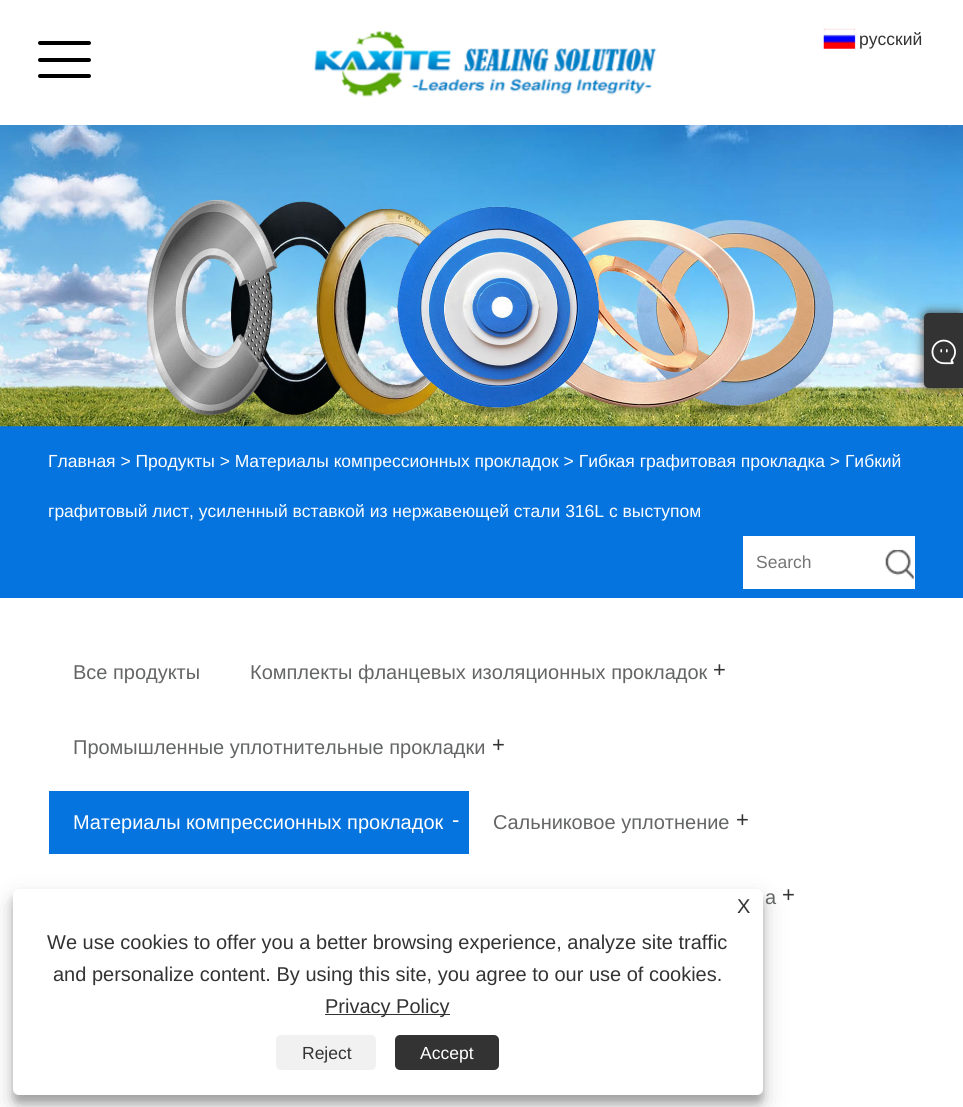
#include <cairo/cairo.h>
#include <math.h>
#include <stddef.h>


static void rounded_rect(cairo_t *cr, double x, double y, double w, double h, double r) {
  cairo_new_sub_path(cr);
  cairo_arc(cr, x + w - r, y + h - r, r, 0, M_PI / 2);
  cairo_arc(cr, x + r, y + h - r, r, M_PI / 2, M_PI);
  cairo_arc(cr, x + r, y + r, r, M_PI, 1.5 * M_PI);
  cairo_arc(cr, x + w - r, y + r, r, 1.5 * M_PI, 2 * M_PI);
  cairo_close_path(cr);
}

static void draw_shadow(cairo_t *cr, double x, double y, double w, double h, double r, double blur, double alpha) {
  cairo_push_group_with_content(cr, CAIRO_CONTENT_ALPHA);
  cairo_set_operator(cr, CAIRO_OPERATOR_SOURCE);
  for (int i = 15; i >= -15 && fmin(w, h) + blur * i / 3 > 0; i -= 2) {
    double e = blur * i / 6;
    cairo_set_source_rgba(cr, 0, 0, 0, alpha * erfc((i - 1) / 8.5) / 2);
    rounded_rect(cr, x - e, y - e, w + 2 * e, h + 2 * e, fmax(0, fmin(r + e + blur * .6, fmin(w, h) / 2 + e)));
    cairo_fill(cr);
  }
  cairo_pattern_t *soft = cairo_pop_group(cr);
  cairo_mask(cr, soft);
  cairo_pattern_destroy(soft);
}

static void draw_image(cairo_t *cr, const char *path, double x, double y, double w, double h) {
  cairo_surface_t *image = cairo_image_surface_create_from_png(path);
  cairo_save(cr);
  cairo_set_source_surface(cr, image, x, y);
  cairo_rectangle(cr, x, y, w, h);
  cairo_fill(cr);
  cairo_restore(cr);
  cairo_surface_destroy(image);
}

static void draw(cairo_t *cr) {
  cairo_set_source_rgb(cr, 1, 1, 1);
  cairo_paint(cr);
  cairo_set_source_rgb(cr, 0, 0, 0);
  rounded_rect(cr, 38, 41, 53, 4, 2);
  cairo_fill(cr);
  rounded_rect(cr, 38, 58, 53, 4, 2);
  cairo_fill(cr);
  rounded_rect(cr, 38, 74, 53, 4, 2);
  cairo_fill(cr);
  draw_image(cr, "images/1.png", 314, 31, 343, 66);
  draw_image(cr, "images/2.png", 823, 28, 33, 21);
  cairo_set_source_rgb(cr, 5 / 255.0, 116 / 255.0, 222 / 255.0);
  cairo_rectangle(cr, 0, 426, 963, 172);
  cairo_fill(cr);
  draw_image(cr, "images/3.png", 0, 125, 963, 302);
  cairo_set_source_rgb(cr, 1, 1, 1);
  cairo_rectangle(cr, 743, 536, 172, 53);
  cairo_fill(cr);
  draw_image(cr, "images/4.png", 885, 549, 29, 30);
  cairo_set_source_rgb(cr, 5 / 255.0, 116 / 255.0, 222 / 255.0);
  cairo_rectangle(cr, 49, 791, 420, 63);
  cairo_fill(cr);
  cairo_set_source_rgb(cr, 51 / 255.0, 51 / 255.0, 51 / 255.0);
  draw_shadow(cr, 924, 313, 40, 75, 5, 5, 1);
  cairo_set_source_rgb(cr, 51 / 255.0, 51 / 255.0, 51 / 255.0);
  cairo_new_path(cr);
  cairo_move_to(cr, 929, 313);
  cairo_line_to(cr, 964, 313);
  cairo_line_to(cr, 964, 388);
  cairo_line_to(cr, 929, 388);
  cairo_curve_to(cr, 926, 388, 924, 386, 924, 383);
  cairo_line_to(cr, 924, 318);
  cairo_curve_to(cr, 924, 315, 926, 313, 929, 313);
  cairo_close_path(cr);
  cairo_fill(cr);
  draw_image(cr, "images/5.png", 931, 339, 25, 26);
  cairo_set_source_rgb(cr, 0, 0, 0);
  draw_shadow(cr, 13, 896, 750, 207, 6, 4, 0.23);
  draw_shadow(cr, 13, 901, 750, 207, 6, 12.5, 0.19);
  cairo_set_source_rgb(cr, 1, 1, 1);
  rounded_rect(cr, 13, 889, 750, 206, 6);
  cairo_fill(cr);
  cairo_set_source_rgb(cr, 51 / 255.0, 51 / 255.0, 51 / 255.0);
  cairo_rectangle(cr, 325, 1014, 125, 1);
  cairo_fill(cr);
  cairo_set_source_rgb(cr, 241 / 255.0, 241 / 255.0, 241 / 255.0);
  rounded_rect(cr, 276, 1035, 100, 35, 5);
  cairo_fill(cr);
  cairo_set_source_rgb(cr, 51 / 255.0, 51 / 255.0, 51 / 255.0);
  rounded_rect(cr, 395, 1035, 104, 35, 5);
  cairo_fill(cr);
  cairo_select_font_face(cr, "Liberation Sans", CAIRO_FONT_SLANT_NORMAL, CAIRO_FONT_WEIGHT_NORMAL);
  cairo_set_font_size(cr, 17.5);
  cairo_move_to(cr, 859, 45);
  cairo_show_text(cr, "русский");
  cairo_set_source_rgb(cr, 1, 1, 1);
  cairo_move_to(cr, 48, 467);
  cairo_show_text(cr, "Главная > Продукты > Материалы компрессионных прокладок > Гибкая графитовая прокладка > Гибкий");
  cairo_move_to(cr, 48, 517);
  cairo_show_text(cr, "графитовый лист, усиленный вставкой из нержавеющей стали 316L с выступом");
  cairo_set_source_rgb(cr, 117 / 255.0, 117 / 255.0, 117 / 255.0);
  cairo_move_to(cr, 756, 568);
  cairo_show_text(cr, "Search");
  cairo_set_font_size(cr, 20);
  cairo_set_source_rgb(cr, 100 / 255.0, 101 / 255.0, 101 / 255.0);
  cairo_move_to(cr, 73, 679);
  cairo_show_text(cr, "Все продукты");
  cairo_move_to(cr, 250, 679);
  cairo_show_text(cr, "Комплекты фланцевых изоляционных прокладок");
  cairo_set_font_size(cr, 22);
  cairo_set_source_rgb(cr, 51 / 255.0, 51 / 255.0, 51 / 255.0);
  cairo_move_to(cr, 713, 677);
  cairo_show_text(cr, "+");
  cairo_set_font_size(cr, 20);
  cairo_set_source_rgb(cr, 100 / 255.0, 101 / 255.0, 101 / 255.0);
  cairo_move_to(cr, 73, 754);
  cairo_show_text(cr, "Промышленные уплотнительные прокладки");
  cairo_set_font_size(cr, 22);
  cairo_set_source_rgb(cr, 51 / 255.0, 51 / 255.0, 51 / 255.0);
  cairo_move_to(cr, 492, 752);
  cairo_show_text(cr, "+");
  cairo_set_font_size(cr, 20);
  cairo_set_source_rgb(cr, 1, 1, 1);
  cairo_move_to(cr, 73, 829);
  cairo_show_text(cr, "Материалы компрессионных прокладок");
  cairo_set_font_size(cr, 22);
  cairo_move_to(cr, 452, 827);
  cairo_show_text(cr, "-");
  cairo_set_font_size(cr, 20);
  cairo_set_source_rgb(cr, 100 / 255.0, 101 / 255.0, 101 / 255.0);
  cairo_move_to(cr, 493, 829);
  cairo_show_text(cr, "Сальниковое уплотнение");
  cairo_set_font_size(cr, 22);
  cairo_set_source_rgb(cr, 51 / 255.0, 51 / 255.0, 51 / 255.0);
  cairo_move_to(cr, 736, 827);
  cairo_show_text(cr, "+");
  cairo_set_font_size(cr, 20);
  cairo_set_source_rgb(cr, 100 / 255.0, 101 / 255.0, 101 / 255.0);
  cairo_move_to(cr, 765, 904);
  cairo_show_text(cr, "а");
  cairo_set_font_size(cr, 22);
  cairo_set_source_rgb(cr, 51 / 255.0, 51 / 255.0, 51 / 255.0);
  cairo_move_to(cr, 782, 902);
  cairo_show_text(cr, "+");
  cairo_set_font_size(cr, 20);
  cairo_move_to(cr, 737, 913);
  cairo_show_text(cr, "X");
  cairo_move_to(cr, 47, 949);
  cairo_show_text(cr, "We use cookies to offer you a better browsing experience, analyze site traffic");
  cairo_move_to(cr, 53, 981);
  cairo_show_text(cr, "and personalize content. By using this site, you agree to our use of cookies.");
  cairo_move_to(cr, 325, 1013);
  cairo_show_text(cr, "Privacy Policy");
  cairo_set_font_size(cr, 17.5);
  cairo_move_to(cr, 302, 1059);
  cairo_show_text(cr, "Reject");
  cairo_set_source_rgb(cr, 1, 1, 1);
  cairo_move_to(cr, 420, 1059);
  cairo_show_text(cr, "Accept");
}

int main(void) {
  cairo_surface_t *surface = cairo_image_surface_create(CAIRO_FORMAT_RGB24, 963, 1107);
  cairo_t *cr = cairo_create(surface);
  cairo_font_options_t *options = cairo_font_options_create();
  cairo_font_options_set_hint_metrics(options, CAIRO_HINT_METRICS_OFF);
  cairo_font_options_set_hint_style(options, CAIRO_HINT_STYLE_NONE);
  cairo_set_font_options(cr, options);
  cairo_set_miter_limit(cr, 4);
  draw(cr);
  cairo_surface_write_to_png(surface, "out.png");
  cairo_font_options_destroy(options);
  cairo_destroy(cr);
  cairo_surface_destroy(surface);
  return 0;
}
